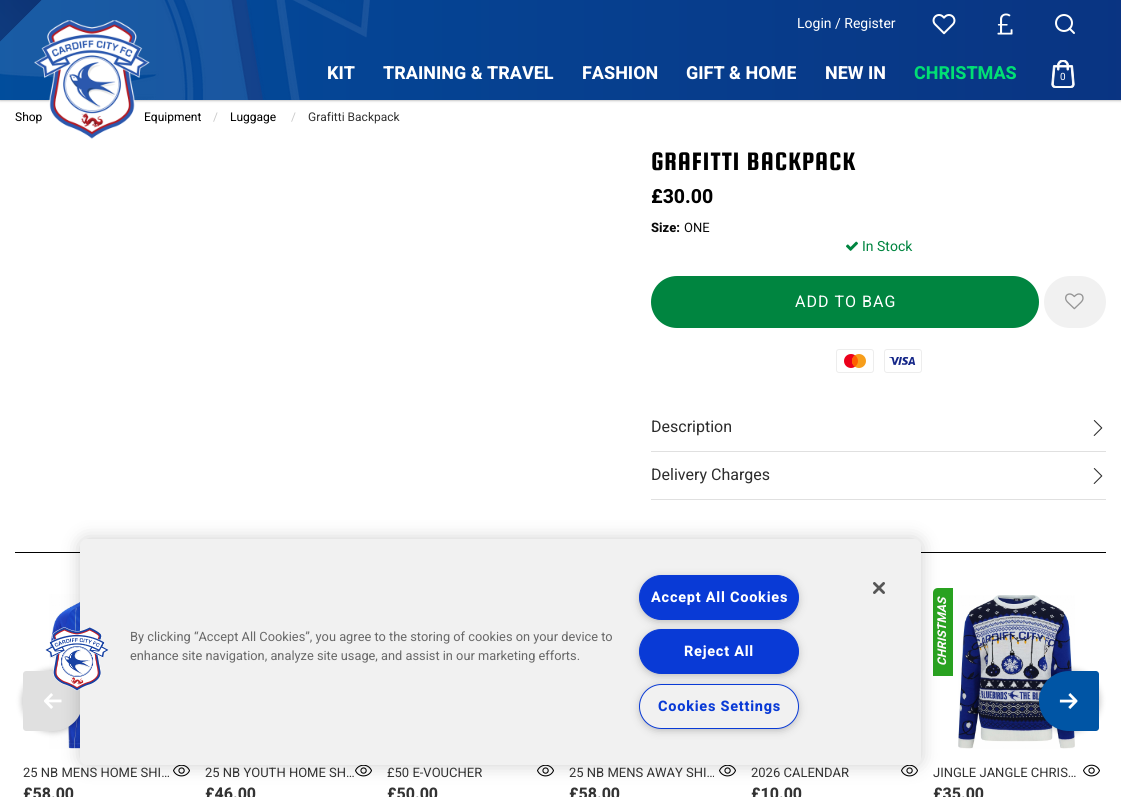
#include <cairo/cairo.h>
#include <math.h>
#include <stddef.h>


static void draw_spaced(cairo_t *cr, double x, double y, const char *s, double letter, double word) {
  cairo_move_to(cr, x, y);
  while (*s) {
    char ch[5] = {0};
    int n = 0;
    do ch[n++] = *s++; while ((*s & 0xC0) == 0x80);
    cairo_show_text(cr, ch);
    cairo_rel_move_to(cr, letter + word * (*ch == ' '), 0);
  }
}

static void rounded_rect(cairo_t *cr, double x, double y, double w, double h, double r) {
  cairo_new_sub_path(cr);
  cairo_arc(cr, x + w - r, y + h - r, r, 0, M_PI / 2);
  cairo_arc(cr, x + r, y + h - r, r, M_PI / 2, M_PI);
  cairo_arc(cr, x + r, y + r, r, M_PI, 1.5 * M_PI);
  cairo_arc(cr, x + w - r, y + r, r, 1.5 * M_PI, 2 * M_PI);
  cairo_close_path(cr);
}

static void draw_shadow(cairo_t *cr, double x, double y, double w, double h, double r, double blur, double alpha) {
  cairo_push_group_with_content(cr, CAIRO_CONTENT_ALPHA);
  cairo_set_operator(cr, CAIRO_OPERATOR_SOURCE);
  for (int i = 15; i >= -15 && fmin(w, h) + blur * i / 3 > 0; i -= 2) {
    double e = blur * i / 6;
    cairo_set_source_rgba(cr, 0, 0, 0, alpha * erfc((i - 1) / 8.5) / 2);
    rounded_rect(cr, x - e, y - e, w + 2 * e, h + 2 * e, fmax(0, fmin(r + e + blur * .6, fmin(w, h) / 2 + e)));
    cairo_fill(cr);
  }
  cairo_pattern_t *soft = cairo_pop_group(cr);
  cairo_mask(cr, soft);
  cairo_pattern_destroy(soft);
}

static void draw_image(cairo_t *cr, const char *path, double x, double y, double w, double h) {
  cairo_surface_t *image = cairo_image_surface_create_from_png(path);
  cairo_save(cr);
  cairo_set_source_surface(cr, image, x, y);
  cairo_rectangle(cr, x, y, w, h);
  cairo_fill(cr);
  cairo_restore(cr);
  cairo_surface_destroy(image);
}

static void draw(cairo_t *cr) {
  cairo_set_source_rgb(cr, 1, 1, 1);
  cairo_paint(cr);
  cairo_set_source_rgb(cr, 149 / 255.0, 149 / 255.0, 149 / 255.0);
  draw_shadow(cr, 0, 0, 1121, 100, 0, 1.5, 1);
  draw_image(cr, "images/1.png", 0, 0, 1121, 100);
  draw_image(cr, "images/3.png", 932, 14, 24, 21);
  draw_image(cr, "images/4.png", 997, 13, 16, 22);
  cairo_arc(cr, 1064, 23, 8, 0, 2 * M_PI);
  cairo_set_source_rgb(cr, 1, 1, 1);
  cairo_stroke(cr);
  cairo_new_path(cr);
  cairo_move_to(cr, 1074, 33);
  cairo_line_to(cr, 1069.5, 28.5);
  cairo_set_line_cap(cr, CAIRO_LINE_CAP_ROUND);
  cairo_set_line_join(cr, CAIRO_LINE_JOIN_ROUND);
  cairo_stroke(cr);
  draw_image(cr, "images/5.png", 1051, 60, 24, 28);
  draw_image(cr, "images/6.png", 846, 241, 12, 10);
  cairo_set_source_rgb(cr, 0, 133 / 255.0, 64 / 255.0);
  rounded_rect(cr, 651, 276, 388, 52, 26);
  cairo_fill(cr);
  cairo_set_source_rgb(cr, 241 / 255.0, 241 / 255.0, 241 / 255.0);
  rounded_rect(cr, 1044, 276, 62, 52, 26);
  cairo_fill(cr);
  draw_image(cr, "images/7.png", 1065, 293, 19, 17);
  draw_image(cr, "images/8.png", 836, 349, 38, 24);
  draw_image(cr, "images/9.png", 884, 349, 38, 24);
  cairo_set_source_rgb(cr, 224 / 255.0, 224 / 255.0, 224 / 255.0);
  cairo_rectangle(cr, 651, 451, 455, 1);
  cairo_fill(cr);
  draw_image(cr, "images/10.png", 1093, 420, 10, 16);
  cairo_rectangle(cr, 651, 499, 455, 1);
  cairo_fill(cr);
  draw_image(cr, "images/10.png", 1093, 468, 10, 16);
  cairo_set_source_rgb(cr, 0, 0, 0);
  cairo_rectangle(cr, 15, 552, 65, 1);
  cairo_fill(cr);
  cairo_rectangle(cr, 921, 552, 185, 1);
  cairo_fill(cr);
  draw_image(cr, "images/11.png", 49, 594, 31, 155);
  draw_image(cr, "images/12.png", 173, 765, 17, 12);
  draw_image(cr, "images/12.png", 355, 765, 17, 12);
  draw_image(cr, "images/12.png", 537, 765, 17, 12);
  draw_image(cr, "images/12.png", 719, 765, 17, 12);
  draw_image(cr, "images/12.png", 901, 765, 17, 12);
  cairo_set_source_rgb(cr, 41 / 255.0, 162 / 255.0, 32 / 255.0);
  cairo_new_path(cr);
  cairo_move_to(cr, 938, 588);
  cairo_line_to(cr, 953, 588);
  cairo_line_to(cr, 953, 676);
  cairo_line_to(cr, 933, 676);
  cairo_line_to(cr, 933, 593);
  cairo_curve_to(cr, 933, 590, 935, 588, 938, 588);
  cairo_close_path(cr);
  cairo_fill(cr);
  draw_image(cr, "images/13.png", 958, 595, 117, 154);
  draw_image(cr, "images/14.png", 1083, 764, 17, 13);
  cairo_set_source_rgb(cr, 0, 0, 0);
  draw_shadow(cr, 23, 671, 60, 60, 30, 3.5, 0.3);
  cairo_set_source_rgb(cr, 224 / 255.0, 224 / 255.0, 224 / 255.0);
  cairo_new_path(cr);
  cairo_move_to(cr, 26, 671);
  cairo_line_to(cr, 53, 671);
  cairo_curve_to(cr, 69.5, 671, 83, 684.5, 83, 701);
  cairo_curve_to(cr, 83, 717.5, 69.5, 731, 53, 731);
  cairo_line_to(cr, 26, 731);
  cairo_curve_to(cr, 24.5, 731, 23, 729.5, 23, 728);
  cairo_line_to(cr, 23, 674);
  cairo_curve_to(cr, 23, 672.5, 24.5, 671, 26, 671);
  cairo_close_path(cr);
  cairo_fill(cr);
  draw_image(cr, "images/15.png", 44, 693, 18, 16);
  cairo_set_source_rgb(cr, 0, 0, 0);
  draw_shadow(cr, 1039, 671, 60, 60, 30, 3.5, 0.3);
  cairo_set_source_rgb(cr, 0, 85 / 255.0, 165 / 255.0);
  cairo_new_path(cr);
  cairo_move_to(cr, 1069, 671);
  cairo_line_to(cr, 1096, 671);
  cairo_curve_to(cr, 1097.5, 671, 1099, 672.5, 1099, 674);
  cairo_line_to(cr, 1099, 728);
  cairo_curve_to(cr, 1099, 729.5, 1097.5, 731, 1096, 731);
  cairo_line_to(cr, 1069, 731);
  cairo_curve_to(cr, 1052.5, 731, 1039, 717.5, 1039, 701);
  cairo_curve_to(cr, 1039, 684.5, 1052.5, 671, 1069, 671);
  cairo_close_path(cr);
  cairo_fill(cr);
  draw_image(cr, "images/16.png", 1059, 693, 19, 16);
  cairo_set_source_rgb(cr, 0, 0, 0);
  draw_shadow(cr, 80, 539, 841, 226, 7, 9, 0.2);
  cairo_set_source_rgb(cr, 241 / 255.0, 241 / 255.0, 241 / 255.0);
  rounded_rect(cr, 80, 539, 841, 226, 7);
  cairo_fill(cr);
  draw_image(cr, "images/17.png", 45, 627, 64, 64);
  draw_image(cr, "images/18.png", 873, 582, 12, 12);
  cairo_set_source_rgb(cr, 153 / 255.0, 153 / 255.0, 153 / 255.0);
  draw_shadow(cr, 642, 580, 154, 39, 19.5, 5, 1);
  cairo_set_source_rgb(cr, 9 / 255.0, 58 / 255.0, 214 / 255.0);
  rounded_rect(cr, 639.5, 575.5, 159, 44, 22);
  cairo_fill_preserve(cr);
  cairo_set_line_width(cr, 1);
  cairo_set_line_cap(cr, CAIRO_LINE_CAP_BUTT);
  cairo_set_line_join(cr, CAIRO_LINE_JOIN_MITER);
  cairo_stroke(cr);
  cairo_set_source_rgb(cr, 153 / 255.0, 153 / 255.0, 153 / 255.0);
  draw_shadow(cr, 642, 634, 154, 39, 19.5, 5, 1);
  cairo_set_source_rgb(cr, 9 / 255.0, 58 / 255.0, 214 / 255.0);
  rounded_rect(cr, 639.5, 629.5, 159, 44, 22);
  cairo_fill_preserve(cr);
  cairo_stroke(cr);
  cairo_set_source_rgb(cr, 153 / 255.0, 153 / 255.0, 153 / 255.0);
  draw_shadow(cr, 642, 689, 154, 39, 19.5, 5, 1);
  cairo_set_source_rgb(cr, 241 / 255.0, 241 / 255.0, 241 / 255.0);
  rounded_rect(cr, 639.5, 684.5, 159, 44, 22);
  cairo_fill_preserve(cr);
  cairo_set_source_rgb(cr, 9 / 255.0, 58 / 255.0, 214 / 255.0);
  cairo_stroke(cr);
  cairo_select_font_face(cr, "Heebo", CAIRO_FONT_SLANT_NORMAL, CAIRO_FONT_WEIGHT_NORMAL);
  cairo_set_font_size(cr, 14);
  cairo_set_source_rgb(cr, 1, 1, 1);
  cairo_move_to(cr, 797, 28);
  cairo_show_text(cr, "Login / Register");
  cairo_select_font_face(cr, "Heebo", CAIRO_FONT_SLANT_NORMAL, CAIRO_FONT_WEIGHT_BOLD);
  cairo_set_font_size(cr, 18);
  cairo_move_to(cr, 327, 79);
  cairo_show_text(cr, "KIT");
  cairo_move_to(cr, 383, 79);
  cairo_show_text(cr, "TRAINING & TRAVEL");
  cairo_move_to(cr, 582, 79);
  cairo_show_text(cr, "FASHION");
  cairo_move_to(cr, 686, 79);
  cairo_show_text(cr, "GIFT & HOME");
  cairo_move_to(cr, 825, 79);
  cairo_show_text(cr, "NEW IN");
  cairo_set_source_rgb(cr, 1 / 255.0, 223 / 255.0, 116 / 255.0);
  cairo_move_to(cr, 914, 79);
  cairo_show_text(cr, "CHRISTMAS");
  cairo_select_font_face(cr, "Heebo", CAIRO_FONT_SLANT_NORMAL, CAIRO_FONT_WEIGHT_NORMAL);
  cairo_set_font_size(cr, 10);
  cairo_set_source_rgb(cr, 1, 1, 1);
  cairo_move_to(cr, 1060, 80);
  cairo_show_text(cr, "0");
  cairo_set_font_size(cr, 12);
  cairo_set_source_rgb(cr, 0, 0, 0);
  cairo_move_to(cr, 15, 121);
  cairo_show_text(cr, "Shop");
  cairo_move_to(cr, 144, 121);
  cairo_show_text(cr, "Equipment");
  draw_image(cr, "images/2.png", 34, 20, 116, 119);
  cairo_set_source_rgb(cr, 202 / 255.0, 202 / 255.0, 202 / 255.0);
  cairo_move_to(cr, 213, 121);
  cairo_show_text(cr, "/");
  cairo_set_source_rgb(cr, 0, 0, 0);
  cairo_move_to(cr, 230, 121);
  cairo_show_text(cr, "Luggage");
  cairo_set_source_rgb(cr, 202 / 255.0, 202 / 255.0, 202 / 255.0);
  cairo_move_to(cr, 291, 121);
  cairo_show_text(cr, "/");
  cairo_set_source_rgb(cr, 51 / 255.0, 51 / 255.0, 51 / 255.0);
  cairo_move_to(cr, 308, 121);
  cairo_show_text(cr, "Grafitti Backpack");
  cairo_select_font_face(cr, "Squada One", CAIRO_FONT_SLANT_NORMAL, CAIRO_FONT_WEIGHT_NORMAL);
  cairo_set_font_size(cr, 27);
  cairo_set_source_rgb(cr, 0, 0, 0);
  draw_spaced(cr, 651, 170, "GRAFITTI BACKPACK", 1, 0);
  cairo_select_font_face(cr, "Heebo", CAIRO_FONT_SLANT_NORMAL, CAIRO_FONT_WEIGHT_BOLD);
  cairo_set_font_size(cr, 19.5);
  cairo_move_to(cr, 651, 203);
  cairo_show_text(cr, "£30.00");
  cairo_set_font_size(cr, 13);
  cairo_set_source_rgb(cr, 10 / 255.0, 10 / 255.0, 10 / 255.0);
  cairo_move_to(cr, 651, 232);
  cairo_show_text(cr, "Size:");
  cairo_select_font_face(cr, "Heebo", CAIRO_FONT_SLANT_NORMAL, CAIRO_FONT_WEIGHT_NORMAL);
  cairo_move_to(cr, 684, 232);
  cairo_show_text(cr, "ONE");
  cairo_set_font_size(cr, 14);
  cairo_set_source_rgb(cr, 0, 133 / 255.0, 64 / 255.0);
  cairo_move_to(cr, 862, 251);
  cairo_show_text(cr, "In Stock");
  cairo_set_font_size(cr, 16);
  cairo_set_source_rgb(cr, 1, 1, 1);
  draw_spaced(cr, 795, 307, "ADD TO BAG", 1, 0);
  cairo_set_source_rgb(cr, 45 / 255.0, 45 / 255.0, 45 / 255.0);
  cairo_move_to(cr, 651, 432);
  cairo_show_text(cr, "Description");
  cairo_move_to(cr, 651, 480);
  cairo_show_text(cr, "Delivery Charges");
  cairo_set_font_size(cr, 13);
  cairo_set_source_rgb(cr, 51 / 255.0, 51 / 255.0, 51 / 255.0);
  cairo_move_to(cr, 23, 777);
  cairo_show_text(cr, "25 NB MENS HOME SHI…");
  cairo_select_font_face(cr, "Heebo", CAIRO_FONT_SLANT_NORMAL, CAIRO_FONT_WEIGHT_BOLD);
  cairo_set_font_size(cr, 16);
  cairo_move_to(cr, 23, 799);
  cairo_show_text(cr, "£58.00");
  cairo_select_font_face(cr, "Heebo", CAIRO_FONT_SLANT_NORMAL, CAIRO_FONT_WEIGHT_NORMAL);
  cairo_set_font_size(cr, 13);
  cairo_move_to(cr, 205, 777);
  cairo_show_text(cr, "25 NB YOUTH HOME SH…");
  cairo_select_font_face(cr, "Heebo", CAIRO_FONT_SLANT_NORMAL, CAIRO_FONT_WEIGHT_BOLD);
  cairo_set_font_size(cr, 16);
  cairo_move_to(cr, 205, 799);
  cairo_show_text(cr, "£46.00");
  cairo_select_font_face(cr, "Heebo", CAIRO_FONT_SLANT_NORMAL, CAIRO_FONT_WEIGHT_NORMAL);
  cairo_set_font_size(cr, 13);
  cairo_move_to(cr, 387, 777);
  cairo_show_text(cr, "£50 E-VOUCHER");
  cairo_select_font_face(cr, "Heebo", CAIRO_FONT_SLANT_NORMAL, CAIRO_FONT_WEIGHT_BOLD);
  cairo_set_font_size(cr, 16);
  cairo_move_to(cr, 387, 799);
  cairo_show_text(cr, "£50.00");
  cairo_select_font_face(cr, "Heebo", CAIRO_FONT_SLANT_NORMAL, CAIRO_FONT_WEIGHT_NORMAL);
  cairo_set_font_size(cr, 13);
  cairo_move_to(cr, 569, 777);
  cairo_show_text(cr, "25 NB MENS AWAY SHI…");
  cairo_select_font_face(cr, "Heebo", CAIRO_FONT_SLANT_NORMAL, CAIRO_FONT_WEIGHT_BOLD);
  cairo_set_font_size(cr, 16);
  cairo_move_to(cr, 569, 799);
  cairo_show_text(cr, "£58.00");
  cairo_select_font_face(cr, "Heebo", CAIRO_FONT_SLANT_NORMAL, CAIRO_FONT_WEIGHT_NORMAL);
  cairo_set_font_size(cr, 13);
  cairo_move_to(cr, 751, 777);
  cairo_show_text(cr, "2026 CALENDAR");
  cairo_select_font_face(cr, "Heebo", CAIRO_FONT_SLANT_NORMAL, CAIRO_FONT_WEIGHT_BOLD);
  cairo_set_font_size(cr, 16);
  cairo_move_to(cr, 751, 799);
  cairo_show_text(cr, "£10.00");
  cairo_select_font_face(cr, "Heebo", CAIRO_FONT_SLANT_ITALIC, CAIRO_FONT_WEIGHT_BOLD);
  cairo_set_font_size(cr, 12);
  cairo_set_source_rgb(cr, 252 / 255.0, 248 / 255.0, 248 / 255.0);
  cairo_save(cr);
  cairo_translate(cr, 946, 666);
  cairo_rotate(cr, -90 * M_PI / 180);
  cairo_move_to(cr, 0, 0);
  cairo_show_text(cr, "CHRISTMAS");
  cairo_restore(cr);
  cairo_select_font_face(cr, "Heebo", CAIRO_FONT_SLANT_NORMAL, CAIRO_FONT_WEIGHT_NORMAL);
  cairo_set_font_size(cr, 13);
  cairo_set_source_rgb(cr, 51 / 255.0, 51 / 255.0, 51 / 255.0);
  cairo_move_to(cr, 933, 777);
  cairo_show_text(cr, "JINGLE JANGLE CHRIS…");
  cairo_select_font_face(cr, "Heebo", CAIRO_FONT_SLANT_NORMAL, CAIRO_FONT_WEIGHT_BOLD);
  cairo_set_font_size(cr, 16);
  cairo_move_to(cr, 933, 799);
  cairo_show_text(cr, "£35.00");
  cairo_select_font_face(cr, "Heebo", CAIRO_FONT_SLANT_NORMAL, CAIRO_FONT_WEIGHT_NORMAL);
  cairo_set_font_size(cr, 12.8);
  cairo_set_source_rgb(cr, 105 / 255.0, 105 / 255.0, 105 / 255.0);
  cairo_move_to(cr, 130, 641);
  cairo_show_text(cr, "By clicking “Accept All Cookies”, you agree to the storing of cookies on your device to");
  cairo_move_to(cr, 130, 660);
  cairo_show_text(cr, "enhance site navigation, analyze site usage, and assist in our marketing efforts.");
  cairo_select_font_face(cr, "Heebo", CAIRO_FONT_SLANT_NORMAL, CAIRO_FONT_WEIGHT_BOLD);
  cairo_set_font_size(cr, 14.5);
  cairo_set_source_rgb(cr, 1, 1, 1);
  draw_spaced(cr, 651, 602, "Accept All Cookies", 0.75, 0);
  draw_spaced(cr, 684, 656, "Reject All", 0.75, 0);
  cairo_set_source_rgb(cr, 9 / 255.0, 58 / 255.0, 214 / 255.0);
  draw_spaced(cr, 658, 711, "Cookies Settings", 0.75, 0);
}

int main(void) {
  cairo_surface_t *surface = cairo_image_surface_create(CAIRO_FORMAT_RGB24, 1121, 797);
  cairo_t *cr = cairo_create(surface);
  cairo_font_options_t *options = cairo_font_options_create();
  cairo_font_options_set_hint_metrics(options, CAIRO_HINT_METRICS_OFF);
  cairo_font_options_set_hint_style(options, CAIRO_HINT_STYLE_NONE);
  cairo_set_font_options(cr, options);
  cairo_set_miter_limit(cr, 4);
  draw(cr);
  cairo_surface_write_to_png(surface, "out.png");
  cairo_font_options_destroy(options);
  cairo_destroy(cr);
  cairo_surface_destroy(surface);
  return 0;
}
